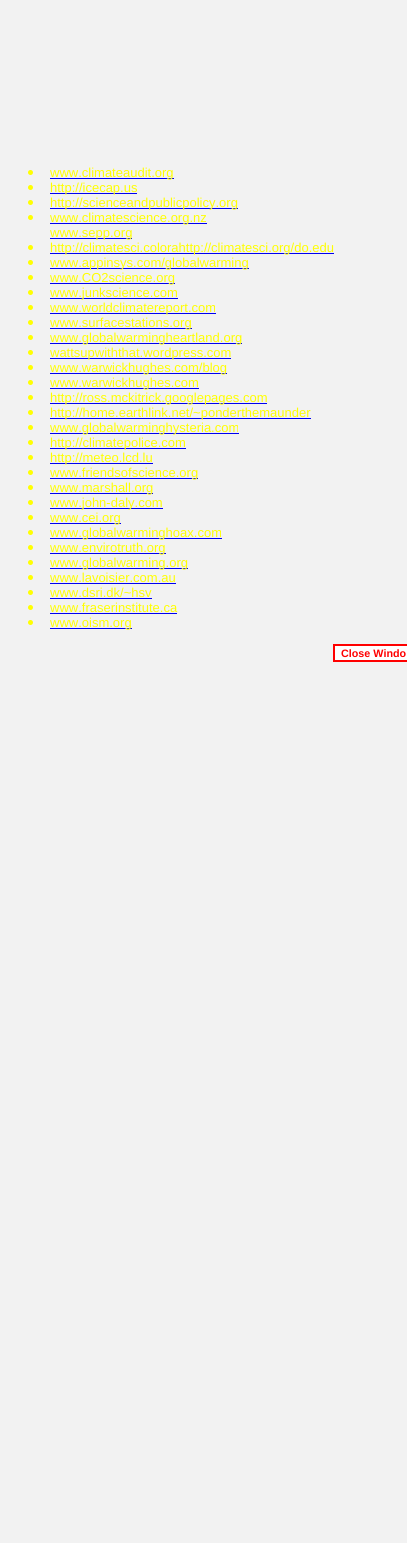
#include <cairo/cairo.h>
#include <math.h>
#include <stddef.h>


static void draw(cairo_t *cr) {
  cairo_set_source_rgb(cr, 242 / 255.0, 242 / 255.0, 242 / 255.0);
  cairo_paint(cr);
  cairo_set_source_rgb(cr, 1, 1, 0);
  cairo_arc(cr, 30.5, 172.5, 2.5, 0, 2 * M_PI);
  cairo_fill(cr);
  cairo_set_source_rgb(cr, 0, 0, 238 / 255.0);
  cairo_rectangle(cr, 50, 178, 124, 1);
  cairo_fill(cr);
  cairo_set_source_rgb(cr, 1, 1, 0);
  cairo_arc(cr, 30.5, 187.5, 2.5, 0, 2 * M_PI);
  cairo_fill(cr);
  cairo_set_source_rgb(cr, 0, 0, 238 / 255.0);
  cairo_rectangle(cr, 50, 193, 87, 1);
  cairo_fill(cr);
  cairo_set_source_rgb(cr, 1, 1, 0);
  cairo_arc(cr, 30.5, 202.5, 2.5, 0, 2 * M_PI);
  cairo_fill(cr);
  cairo_set_source_rgb(cr, 0, 0, 238 / 255.0);
  cairo_rectangle(cr, 50, 208, 188, 1);
  cairo_fill(cr);
  cairo_set_source_rgb(cr, 1, 1, 0);
  cairo_arc(cr, 30.5, 217.5, 2.5, 0, 2 * M_PI);
  cairo_fill(cr);
  cairo_set_source_rgb(cr, 0, 0, 238 / 255.0);
  cairo_rectangle(cr, 50, 223, 157, 1);
  cairo_fill(cr);
  cairo_rectangle(cr, 50, 238, 82, 1);
  cairo_fill(cr);
  cairo_set_source_rgb(cr, 1, 1, 0);
  cairo_arc(cr, 30.5, 247.5, 2.5, 0, 2 * M_PI);
  cairo_fill(cr);
  cairo_set_source_rgb(cr, 0, 0, 238 / 255.0);
  cairo_rectangle(cr, 50, 253, 284, 1);
  cairo_fill(cr);
  cairo_set_source_rgb(cr, 1, 1, 0);
  cairo_arc(cr, 30.5, 262.5, 2.5, 0, 2 * M_PI);
  cairo_fill(cr);
  cairo_set_source_rgb(cr, 0, 0, 238 / 255.0);
  cairo_rectangle(cr, 50, 268, 199, 1);
  cairo_fill(cr);
  cairo_set_source_rgb(cr, 1, 1, 0);
  cairo_arc(cr, 30.5, 277.5, 2.5, 0, 2 * M_PI);
  cairo_fill(cr);
  cairo_set_source_rgb(cr, 0, 0, 238 / 255.0);
  cairo_rectangle(cr, 50, 283, 125, 1);
  cairo_fill(cr);
  cairo_set_source_rgb(cr, 1, 1, 0);
  cairo_arc(cr, 30.5, 292.5, 2.5, 0, 2 * M_PI);
  cairo_fill(cr);
  cairo_set_source_rgb(cr, 0, 0, 238 / 255.0);
  cairo_rectangle(cr, 50, 298, 128, 1);
  cairo_fill(cr);
  cairo_set_source_rgb(cr, 1, 1, 0);
  cairo_arc(cr, 30.5, 307.5, 2.5, 0, 2 * M_PI);
  cairo_fill(cr);
  cairo_set_source_rgb(cr, 0, 0, 238 / 255.0);
  cairo_rectangle(cr, 50, 313, 166, 1);
  cairo_fill(cr);
  cairo_set_source_rgb(cr, 1, 1, 0);
  cairo_arc(cr, 30.5, 322.5, 2.5, 0, 2 * M_PI);
  cairo_fill(cr);
  cairo_set_source_rgb(cr, 0, 0, 238 / 255.0);
  cairo_rectangle(cr, 50, 328, 142, 1);
  cairo_fill(cr);
  cairo_set_source_rgb(cr, 1, 1, 0);
  cairo_arc(cr, 30.5, 337.5, 2.5, 0, 2 * M_PI);
  cairo_fill(cr);
  cairo_set_source_rgb(cr, 0, 0, 238 / 255.0);
  cairo_rectangle(cr, 50, 343, 192, 1);
  cairo_fill(cr);
  cairo_set_source_rgb(cr, 1, 1, 0);
  cairo_arc(cr, 30.5, 352.5, 2.5, 0, 2 * M_PI);
  cairo_fill(cr);
  cairo_set_source_rgb(cr, 0, 0, 238 / 255.0);
  cairo_rectangle(cr, 50, 358, 181, 1);
  cairo_fill(cr);
  cairo_set_source_rgb(cr, 1, 1, 0);
  cairo_arc(cr, 30.5, 367.5, 2.5, 0, 2 * M_PI);
  cairo_fill(cr);
  cairo_set_source_rgb(cr, 0, 0, 238 / 255.0);
  cairo_rectangle(cr, 50, 373, 177, 1);
  cairo_fill(cr);
  cairo_set_source_rgb(cr, 1, 1, 0);
  cairo_arc(cr, 30.5, 382.5, 2.5, 0, 2 * M_PI);
  cairo_fill(cr);
  cairo_set_source_rgb(cr, 0, 0, 238 / 255.0);
  cairo_rectangle(cr, 50, 388, 149, 1);
  cairo_fill(cr);
  cairo_set_source_rgb(cr, 1, 1, 0);
  cairo_arc(cr, 30.5, 397.5, 2.5, 0, 2 * M_PI);
  cairo_fill(cr);
  cairo_set_source_rgb(cr, 0, 0, 238 / 255.0);
  cairo_rectangle(cr, 50, 403, 217, 1);
  cairo_fill(cr);
  cairo_set_source_rgb(cr, 1, 1, 0);
  cairo_arc(cr, 30.5, 412.5, 2.5, 0, 2 * M_PI);
  cairo_fill(cr);
  cairo_set_source_rgb(cr, 0, 0, 238 / 255.0);
  cairo_rectangle(cr, 50, 418, 261, 1);
  cairo_fill(cr);
  cairo_set_source_rgb(cr, 1, 1, 0);
  cairo_arc(cr, 30.5, 427.5, 2.5, 0, 2 * M_PI);
  cairo_fill(cr);
  cairo_set_source_rgb(cr, 0, 0, 238 / 255.0);
  cairo_rectangle(cr, 50, 433, 189, 1);
  cairo_fill(cr);
  cairo_set_source_rgb(cr, 1, 1, 0);
  cairo_arc(cr, 30.5, 442.5, 2.5, 0, 2 * M_PI);
  cairo_fill(cr);
  cairo_set_source_rgb(cr, 0, 0, 238 / 255.0);
  cairo_rectangle(cr, 50, 448, 136, 1);
  cairo_fill(cr);
  cairo_set_source_rgb(cr, 1, 1, 0);
  cairo_arc(cr, 30.5, 457.5, 2.5, 0, 2 * M_PI);
  cairo_fill(cr);
  cairo_set_source_rgb(cr, 0, 0, 238 / 255.0);
  cairo_rectangle(cr, 50, 463, 103, 1);
  cairo_fill(cr);
  cairo_set_source_rgb(cr, 1, 1, 0);
  cairo_arc(cr, 30.5, 472.5, 2.5, 0, 2 * M_PI);
  cairo_fill(cr);
  cairo_set_source_rgb(cr, 0, 0, 238 / 255.0);
  cairo_rectangle(cr, 50, 478, 148, 1);
  cairo_fill(cr);
  cairo_set_source_rgb(cr, 1, 1, 0);
  cairo_arc(cr, 30.5, 487.5, 2.5, 0, 2 * M_PI);
  cairo_fill(cr);
  cairo_set_source_rgb(cr, 0, 0, 238 / 255.0);
  cairo_rectangle(cr, 50, 493, 103, 1);
  cairo_fill(cr);
  cairo_set_source_rgb(cr, 1, 1, 0);
  cairo_arc(cr, 30.5, 502.5, 2.5, 0, 2 * M_PI);
  cairo_fill(cr);
  cairo_set_source_rgb(cr, 0, 0, 238 / 255.0);
  cairo_rectangle(cr, 50, 508, 113, 1);
  cairo_fill(cr);
  cairo_set_source_rgb(cr, 1, 1, 0);
  cairo_arc(cr, 30.5, 517.5, 2.5, 0, 2 * M_PI);
  cairo_fill(cr);
  cairo_set_source_rgb(cr, 0, 0, 238 / 255.0);
  cairo_rectangle(cr, 50, 523, 71, 1);
  cairo_fill(cr);
  cairo_set_source_rgb(cr, 1, 1, 0);
  cairo_arc(cr, 30.5, 532.5, 2.5, 0, 2 * M_PI);
  cairo_fill(cr);
  cairo_set_source_rgb(cr, 0, 0, 238 / 255.0);
  cairo_rectangle(cr, 50, 538, 172, 1);
  cairo_fill(cr);
  cairo_set_source_rgb(cr, 1, 1, 0);
  cairo_arc(cr, 30.5, 547.5, 2.5, 0, 2 * M_PI);
  cairo_fill(cr);
  cairo_set_source_rgb(cr, 0, 0, 238 / 255.0);
  cairo_rectangle(cr, 50, 553, 116, 1);
  cairo_fill(cr);
  cairo_set_source_rgb(cr, 1, 1, 0);
  cairo_arc(cr, 30.5, 562.5, 2.5, 0, 2 * M_PI);
  cairo_fill(cr);
  cairo_set_source_rgb(cr, 0, 0, 238 / 255.0);
  cairo_rectangle(cr, 50, 568, 138, 1);
  cairo_fill(cr);
  cairo_set_source_rgb(cr, 1, 1, 0);
  cairo_arc(cr, 30.5, 577.5, 2.5, 0, 2 * M_PI);
  cairo_fill(cr);
  cairo_set_source_rgb(cr, 0, 0, 238 / 255.0);
  cairo_rectangle(cr, 50, 583, 126, 1);
  cairo_fill(cr);
  cairo_set_source_rgb(cr, 1, 1, 0);
  cairo_arc(cr, 30.5, 592.5, 2.5, 0, 2 * M_PI);
  cairo_fill(cr);
  cairo_set_source_rgb(cr, 0, 0, 238 / 255.0);
  cairo_rectangle(cr, 50, 598, 102, 1);
  cairo_fill(cr);
  cairo_set_source_rgb(cr, 1, 1, 0);
  cairo_arc(cr, 30.5, 607.5, 2.5, 0, 2 * M_PI);
  cairo_fill(cr);
  cairo_set_source_rgb(cr, 0, 0, 238 / 255.0);
  cairo_rectangle(cr, 50, 613, 127, 1);
  cairo_fill(cr);
  cairo_set_source_rgb(cr, 1, 1, 0);
  cairo_arc(cr, 30.5, 622.5, 2.5, 0, 2 * M_PI);
  cairo_fill(cr);
  cairo_set_source_rgb(cr, 0, 0, 238 / 255.0);
  cairo_rectangle(cr, 50, 628, 82, 1);
  cairo_fill(cr);
  cairo_set_source_rgb(cr, 1, 1, 1);
  cairo_rectangle(cr, 334, 645, 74, 16);
  cairo_fill_preserve(cr);
  cairo_set_source_rgb(cr, 1, 0, 0);
  cairo_stroke(cr);
  cairo_select_font_face(cr, "Liberation Sans", CAIRO_FONT_SLANT_NORMAL, CAIRO_FONT_WEIGHT_NORMAL);
  cairo_set_font_size(cr, 13);
  cairo_set_source_rgb(cr, 1, 1, 0);
  cairo_move_to(cr, 50, 177);
  cairo_show_text(cr, "www.climateaudit.org");
  cairo_move_to(cr, 50, 192);
  cairo_show_text(cr, "http://icecap.us");
  cairo_move_to(cr, 50, 207);
  cairo_show_text(cr, "http://scienceandpublicpolicy.org");
  cairo_move_to(cr, 50, 222);
  cairo_show_text(cr, "www.climatescience.org.nz");
  cairo_move_to(cr, 50, 237);
  cairo_show_text(cr, "www.sepp.org");
  cairo_move_to(cr, 50, 252);
  cairo_show_text(cr, "http://climatesci.colorahttp://climatesci.org/do.edu");
  cairo_move_to(cr, 50, 267);
  cairo_show_text(cr, "www.appinsys.com/globalwarming");
  cairo_move_to(cr, 50, 282);
  cairo_show_text(cr, "www.CO2science.org");
  cairo_move_to(cr, 50, 297);
  cairo_show_text(cr, "www.junkscience.com");
  cairo_move_to(cr, 50, 312);
  cairo_show_text(cr, "www.worldclimatereport.com");
  cairo_move_to(cr, 50, 327);
  cairo_show_text(cr, "www.surfacestations.org");
  cairo_move_to(cr, 50, 342);
  cairo_show_text(cr, "www.globalwarmingheartland.org");
  cairo_move_to(cr, 50, 357);
  cairo_show_text(cr, "wattsupwiththat.wordpress.com");
  cairo_move_to(cr, 50, 372);
  cairo_show_text(cr, "www.warwickhughes.com/blog");
  cairo_move_to(cr, 50, 387);
  cairo_show_text(cr, "www.warwickhughes.com");
  cairo_move_to(cr, 50, 402);
  cairo_show_text(cr, "http://ross.mckitrick.googlepages.com");
  cairo_move_to(cr, 50, 417);
  cairo_show_text(cr, "http://home.earthlink.net/~ponderthemaunder");
  cairo_move_to(cr, 50, 432);
  cairo_show_text(cr, "www.globalwarminghysteria.com");
  cairo_move_to(cr, 50, 447);
  cairo_show_text(cr, "http://climatepolice.com");
  cairo_move_to(cr, 50, 462);
  cairo_show_text(cr, "http://meteo.lcd.lu");
  cairo_move_to(cr, 50, 477);
  cairo_show_text(cr, "www.friendsofscience.org");
  cairo_move_to(cr, 50, 492);
  cairo_show_text(cr, "www.marshall.org");
  cairo_move_to(cr, 50, 507);
  cairo_show_text(cr, "www.john-daly.com");
  cairo_move_to(cr, 50, 522);
  cairo_show_text(cr, "www.cei.org");
  cairo_move_to(cr, 50, 537);
  cairo_show_text(cr, "www.globalwarminghoax.com");
  cairo_move_to(cr, 50, 552);
  cairo_show_text(cr, "www.envirotruth.org");
  cairo_move_to(cr, 50, 567);
  cairo_show_text(cr, "www.globalwarming.org");
  cairo_move_to(cr, 50, 582);
  cairo_show_text(cr, "www.lavoisier.com.au");
  cairo_move_to(cr, 50, 597);
  cairo_show_text(cr, "www.dsri.dk/~hsv");
  cairo_move_to(cr, 50, 612);
  cairo_show_text(cr, "www.fraserinstitute.ca");
  cairo_move_to(cr, 50, 627);
  cairo_show_text(cr, "www.oism.org");
  cairo_select_font_face(cr, "Liberation Sans", CAIRO_FONT_SLANT_NORMAL, CAIRO_FONT_WEIGHT_BOLD);
  cairo_set_font_size(cr, 10.75);
  cairo_set_source_rgb(cr, 1, 0, 0);
  cairo_move_to(cr, 341, 657);
  cairo_show_text(cr, "Close Windo");
}

int main(void) {
  cairo_surface_t *surface = cairo_image_surface_create(CAIRO_FORMAT_RGB24, 407, 1543);
  cairo_t *cr = cairo_create(surface);
  cairo_font_options_t *options = cairo_font_options_create();
  cairo_font_options_set_hint_metrics(options, CAIRO_HINT_METRICS_OFF);
  cairo_font_options_set_hint_style(options, CAIRO_HINT_STYLE_NONE);
  cairo_set_font_options(cr, options);
  cairo_set_miter_limit(cr, 4);
  draw(cr);
  cairo_surface_write_to_png(surface, "out.png");
  cairo_font_options_destroy(options);
  cairo_destroy(cr);
  cairo_surface_destroy(surface);
  return 0;
}
